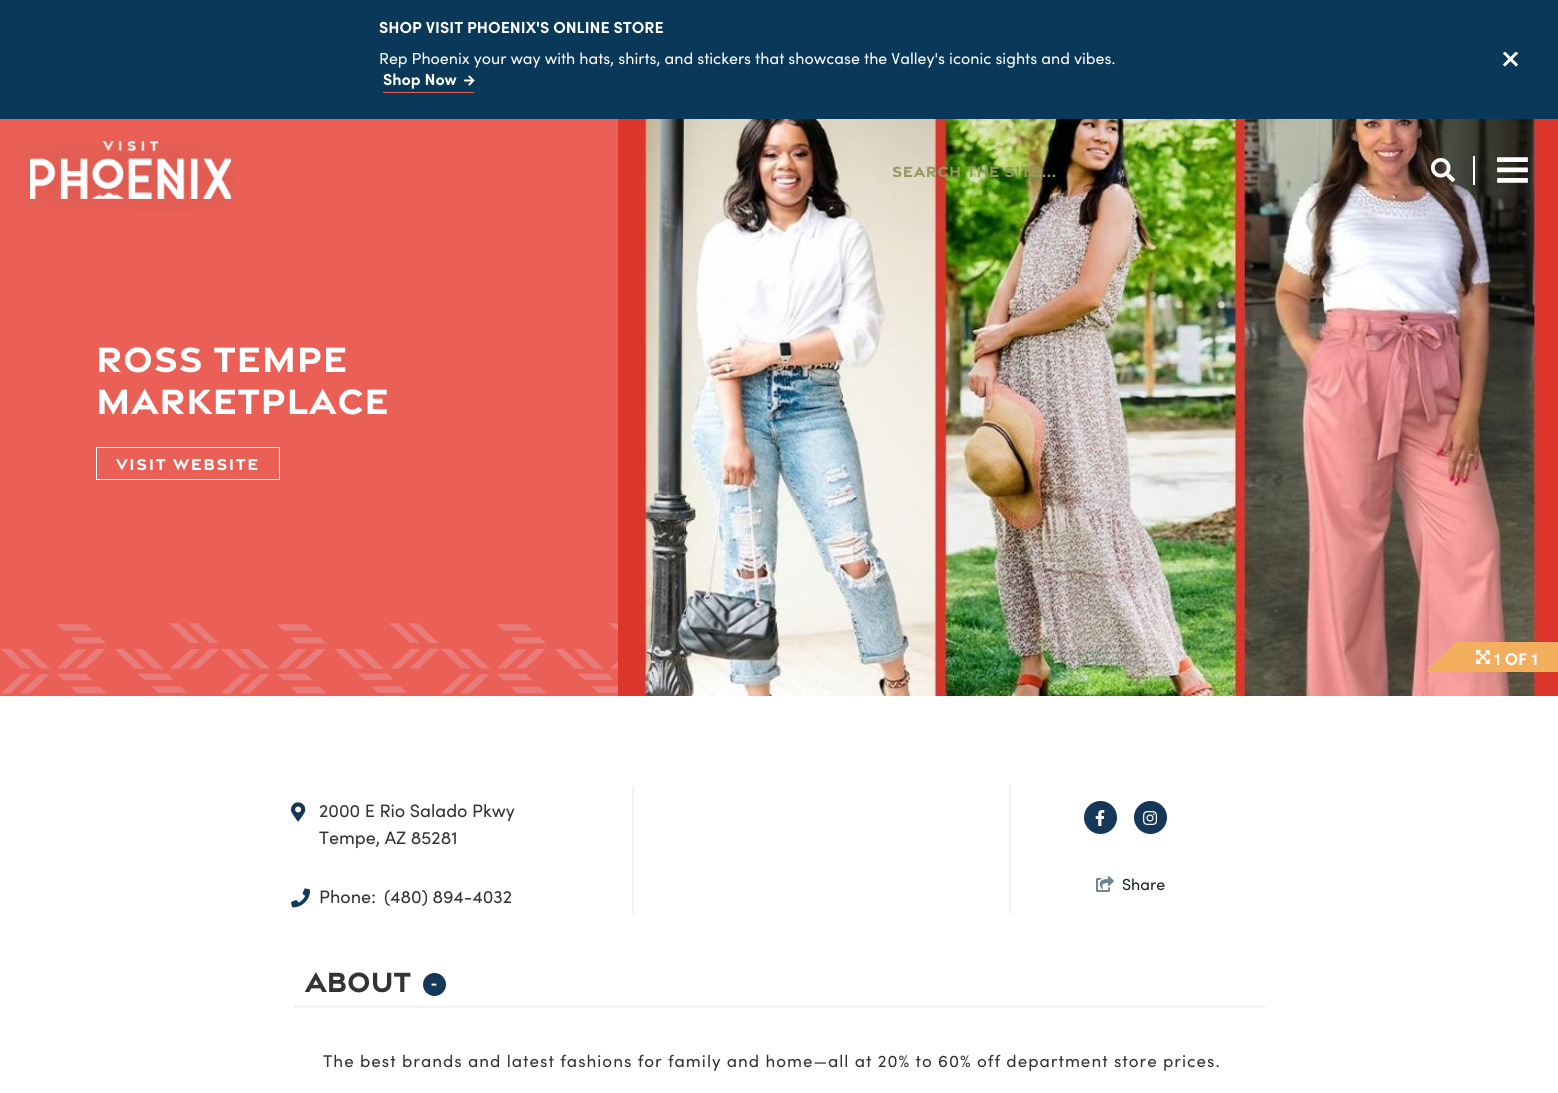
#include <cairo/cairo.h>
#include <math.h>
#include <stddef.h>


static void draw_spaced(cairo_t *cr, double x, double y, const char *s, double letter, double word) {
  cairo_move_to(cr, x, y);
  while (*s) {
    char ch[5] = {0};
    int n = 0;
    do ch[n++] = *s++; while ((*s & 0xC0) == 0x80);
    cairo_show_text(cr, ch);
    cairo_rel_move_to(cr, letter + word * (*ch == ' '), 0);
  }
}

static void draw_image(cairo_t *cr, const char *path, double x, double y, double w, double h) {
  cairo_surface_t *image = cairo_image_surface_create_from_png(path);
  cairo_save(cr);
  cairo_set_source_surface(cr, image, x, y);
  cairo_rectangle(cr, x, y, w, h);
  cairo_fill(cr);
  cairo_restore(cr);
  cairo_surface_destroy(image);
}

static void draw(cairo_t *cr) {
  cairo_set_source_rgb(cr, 1, 1, 1);
  cairo_paint(cr);
  cairo_set_source_rgb(cr, 10 / 255.0, 56 / 255.0, 89 / 255.0);
  cairo_rectangle(cr, 0, 0, 1558, 119);
  cairo_fill(cr);
  draw_image(cr, "images/1.png", 1503, 52, 15, 15);
  draw_image(cr, "images/2.png", 464, 75, 11, 11);
  cairo_set_source_rgb(cr, 235 / 255.0, 96 / 255.0, 86 / 255.0);
  cairo_rectangle(cr, 383, 92, 91, 1);
  cairo_fill(cr);
  cairo_rectangle(cr, 0, 119, 618, 577);
  cairo_fill(cr);
  draw_image(cr, "images/3.png", 25, 141, 210, 70);
  draw_image(cr, "images/7.png", 618, 119, 940, 577);
  draw_image(cr, "images/4.png", 1431, 158, 24, 24);
  cairo_set_source_rgb(cr, 1, 1, 1);
  cairo_rectangle(cr, 1473, 156, 2, 29);
  cairo_fill(cr);
  draw_image(cr, "images/5.png", 1497, 157, 31, 26);
  draw_image(cr, "images/6.png", 1, 623, 617, 71);
  cairo_rectangle(cr, 96.5, 447.5, 183, 32);
  cairo_set_line_width(cr, 1);
  cairo_stroke(cr);
  cairo_set_source_rgb(cr, 244 / 255.0, 175 / 255.0, 94 / 255.0);
  cairo_rectangle(cr, 1456, 642, 102, 30);
  cairo_fill(cr);
  cairo_new_path(cr);
  cairo_move_to(cr, 1456, 672);
  cairo_line_to(cr, 1426, 672);
  cairo_line_to(cr, 1456, 642);
  cairo_close_path(cr);
  cairo_fill(cr);
  draw_image(cr, "images/8.png", 1476, 650, 15, 14);
  draw_image(cr, "images/9.png", 291, 802, 15, 20);
  draw_image(cr, "images/10.png", 291, 888, 19, 20);
  cairo_set_source_rgb(cr, 241 / 255.0, 243 / 255.0, 244 / 255.0);
  cairo_rectangle(cr, 1009, 786, 2, 128);
  cairo_fill(cr);
  cairo_rectangle(cr, 632, 786, 2, 128);
  cairo_fill(cr);
  cairo_set_source_rgb(cr, 21 / 255.0, 55 / 255.0, 88 / 255.0);
  cairo_arc(cr, 1100.5, 817.5, 16.5, 0, 2 * M_PI);
  cairo_fill(cr);
  draw_image(cr, "images/11.png", 1095, 810, 10, 16);
  cairo_arc(cr, 1150.5, 817.5, 16.5, 0, 2 * M_PI);
  cairo_fill(cr);
  draw_image(cr, "images/12.png", 1143, 811, 15, 14);
  draw_image(cr, "images/13.png", 1096, 876, 18, 16);
  cairo_arc(cr, 434.5, 984.5, 11.5, 0, 2 * M_PI);
  cairo_fill(cr);
  cairo_set_source_rgb(cr, 241 / 255.0, 243 / 255.0, 244 / 255.0);
  cairo_rectangle(cr, 294, 1005, 971, 3);
  cairo_fill(cr);
  cairo_select_font_face(cr, "Sofia", CAIRO_FONT_SLANT_NORMAL, CAIRO_FONT_WEIGHT_BOLD);
  cairo_set_font_size(cr, 16);
  cairo_set_source_rgb(cr, 1, 1, 1);
  cairo_move_to(cr, 379, 33);
  cairo_show_text(cr, "SHOP VISIT PHOENIX'S ONLINE STORE");
  cairo_select_font_face(cr, "Sofia", CAIRO_FONT_SLANT_NORMAL, CAIRO_FONT_WEIGHT_NORMAL);
  cairo_move_to(cr, 379, 64);
  cairo_show_text(cr, "Rep Phoenix your way with hats, shirts, and stickers that showcase the Valley's iconic sights and vibes.");
  cairo_select_font_face(cr, "Sofia", CAIRO_FONT_SLANT_NORMAL, CAIRO_FONT_WEIGHT_BOLD);
  cairo_move_to(cr, 383, 85);
  cairo_show_text(cr, "Shop Now");
  cairo_select_font_face(cr, "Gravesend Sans", CAIRO_FONT_SLANT_NORMAL, CAIRO_FONT_WEIGHT_BOLD);
  cairo_set_source_rgb(cr, 146 / 255.0, 155 / 255.0, 92 / 255.0);
  draw_spaced(cr, 892, 177, "SEARCH THE SITE...", 0.6, 0);
  cairo_set_font_size(cr, 38);
  cairo_set_source_rgb(cr, 1, 1, 1);
  draw_spaced(cr, 96, 372, "ROSS TEMPE", 0.75, 0);
  draw_spaced(cr, 96, 414, "MARKETPLACE", 0.75, 0);
  cairo_set_font_size(cr, 17);
  draw_spaced(cr, 116, 470, "VISIT WEBSITE", 1.6, 0);
  cairo_select_font_face(cr, "Sofia", CAIRO_FONT_SLANT_NORMAL, CAIRO_FONT_WEIGHT_BOLD);
  cairo_set_source_rgb(cr, 248 / 255.0, 250 / 255.0, 252 / 255.0);
  cairo_move_to(cr, 1494, 665);
  cairo_show_text(cr, "1 OF 1");
  cairo_select_font_face(cr, "Sofia", CAIRO_FONT_SLANT_NORMAL, CAIRO_FONT_WEIGHT_NORMAL);
  cairo_set_font_size(cr, 18);
  cairo_set_source_rgb(cr, 51 / 255.0, 51 / 255.0, 51 / 255.0);
  cairo_move_to(cr, 319, 817);
  cairo_show_text(cr, "2000 E Rio Salado Pkwy");
  cairo_move_to(cr, 319, 844);
  cairo_show_text(cr, "Tempe, AZ 85281");
  cairo_move_to(cr, 319, 903);
  cairo_show_text(cr, "Phone:");
  cairo_move_to(cr, 384, 903);
  cairo_show_text(cr, "(480) 894-4032");
  cairo_set_font_size(cr, 16);
  cairo_set_source_rgb(cr, 26 / 255.0, 34 / 255.0, 45 / 255.0);
  cairo_move_to(cr, 1122, 890);
  cairo_show_text(cr, "Share");
  cairo_select_font_face(cr, "Gravesend Sans", CAIRO_FONT_SLANT_NORMAL, CAIRO_FONT_WEIGHT_BOLD);
  cairo_set_font_size(cr, 30);
  cairo_set_source_rgb(cr, 51 / 255.0, 51 / 255.0, 51 / 255.0);
  cairo_move_to(cr, 305, 992);
  cairo_show_text(cr, "ABOUT");
  cairo_set_font_size(cr, 17);
  cairo_set_source_rgb(cr, 1, 1, 1);
  cairo_move_to(cr, 431, 990);
  cairo_show_text(cr, "-");
  cairo_select_font_face(cr, "Sofia", CAIRO_FONT_SLANT_NORMAL, CAIRO_FONT_WEIGHT_NORMAL);
  cairo_set_source_rgb(cr, 51 / 255.0, 51 / 255.0, 51 / 255.0);
  draw_spaced(cr, 323, 1067, "The best brands and latest fashions for family and home—all at 20% to 60% off department store prices.", 1, 0);
}

int main(void) {
  cairo_surface_t *surface = cairo_image_surface_create(CAIRO_FORMAT_RGB24, 1558, 1093);
  cairo_t *cr = cairo_create(surface);
  cairo_font_options_t *options = cairo_font_options_create();
  cairo_font_options_set_hint_metrics(options, CAIRO_HINT_METRICS_OFF);
  cairo_font_options_set_hint_style(options, CAIRO_HINT_STYLE_NONE);
  cairo_set_font_options(cr, options);
  cairo_set_miter_limit(cr, 4);
  draw(cr);
  cairo_surface_write_to_png(surface, "out.png");
  cairo_font_options_destroy(options);
  cairo_destroy(cr);
  cairo_surface_destroy(surface);
  return 0;
}
